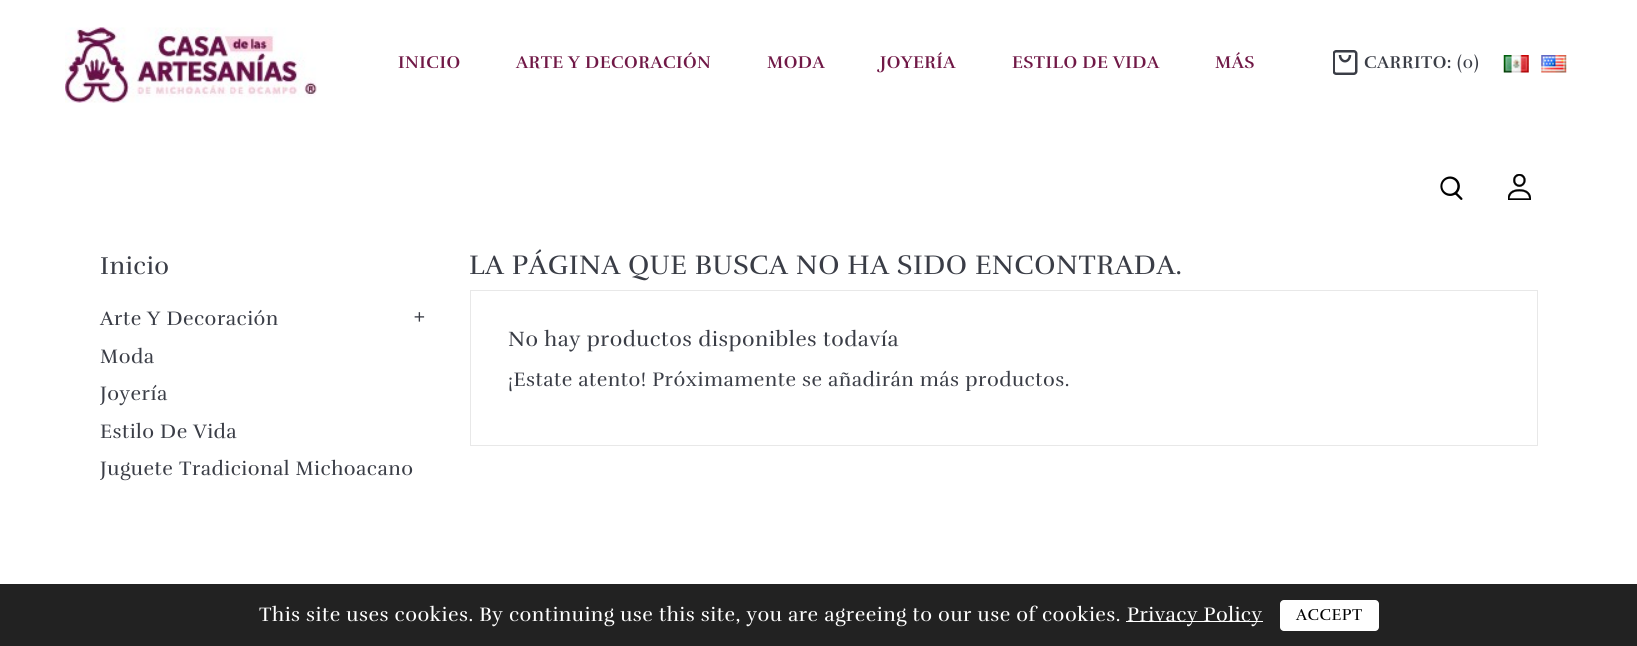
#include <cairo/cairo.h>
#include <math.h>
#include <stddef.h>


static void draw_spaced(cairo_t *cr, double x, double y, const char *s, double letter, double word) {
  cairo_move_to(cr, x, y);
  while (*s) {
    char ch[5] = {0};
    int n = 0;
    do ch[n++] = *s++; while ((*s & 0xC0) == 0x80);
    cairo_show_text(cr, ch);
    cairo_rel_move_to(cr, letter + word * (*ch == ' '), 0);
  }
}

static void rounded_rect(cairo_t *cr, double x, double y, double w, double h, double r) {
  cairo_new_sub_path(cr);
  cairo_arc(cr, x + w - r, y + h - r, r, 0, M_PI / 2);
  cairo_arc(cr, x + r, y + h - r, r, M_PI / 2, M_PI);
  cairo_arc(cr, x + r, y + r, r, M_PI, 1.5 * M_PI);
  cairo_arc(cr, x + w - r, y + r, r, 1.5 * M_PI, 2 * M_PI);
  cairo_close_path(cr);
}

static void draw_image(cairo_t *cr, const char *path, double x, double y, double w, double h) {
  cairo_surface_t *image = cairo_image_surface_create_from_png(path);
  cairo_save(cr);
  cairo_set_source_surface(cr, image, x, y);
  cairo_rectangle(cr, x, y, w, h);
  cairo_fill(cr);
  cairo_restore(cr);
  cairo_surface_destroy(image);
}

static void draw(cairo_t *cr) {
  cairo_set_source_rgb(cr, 1, 1, 1);
  cairo_paint(cr);
  draw_image(cr, "images/1.png", 65, 27, 252, 76);
  draw_image(cr, "images/2.png", 1333, 50, 25, 25);
  draw_image(cr, "images/3.png", 1503, 55, 26, 18);
  draw_image(cr, "images/4.png", 1541, 55, 26, 18);
  draw_image(cr, "images/5.png", 1440, 176, 23, 24);
  draw_image(cr, "images/6.png", 1508, 174, 23, 26);
  draw_image(cr, "images/7.png", 414, 312, 11, 10);
  cairo_rectangle(cr, 470.5, 290.5, 1067, 155);
  cairo_set_source_rgb(cr, 232 / 255.0, 232 / 255.0, 232 / 255.0);
  cairo_set_line_width(cr, 1);
  cairo_stroke(cr);
  cairo_set_source_rgb(cr, 34 / 255.0, 34 / 255.0, 34 / 255.0);
  cairo_rectangle(cr, 0, 584, 1637, 62);
  cairo_fill(cr);
  cairo_set_source_rgb(cr, 1, 1, 1);
  cairo_rectangle(cr, 1126, 621, 137, 1);
  cairo_fill(cr);
  rounded_rect(cr, 1280, 600, 99, 31, 4);
  cairo_fill(cr);
  cairo_select_font_face(cr, "Rufina", CAIRO_FONT_SLANT_NORMAL, CAIRO_FONT_WEIGHT_BOLD);
  cairo_set_font_size(cr, 17.5);
  cairo_set_source_rgb(cr, 112 / 255.0, 24 / 255.0, 70 / 255.0);
  draw_spaced(cr, 398, 68, "INICIO", 0.5, 0);
  draw_spaced(cr, 516, 68, "ARTE Y DECORACIÓN", 0.5, 0);
  draw_spaced(cr, 767, 68, "MODA", 0.5, 0);
  draw_spaced(cr, 880, 68, "JOYERÍA", 0.5, 0);
  draw_spaced(cr, 1012, 68, "ESTILO DE VIDA", 0.5, 0);
  draw_spaced(cr, 1215, 68, "MÁS", 0.5, 0);
  cairo_set_source_rgb(cr, 58 / 255.0, 61 / 255.0, 70 / 255.0);
  draw_spaced(cr, 1364, 68, "CARRITO:", 0.5, 0);
  cairo_select_font_face(cr, "Rufina", CAIRO_FONT_SLANT_NORMAL, CAIRO_FONT_WEIGHT_NORMAL);
  draw_spaced(cr, 1457, 68, "(0)", 0.5, 0);
  cairo_set_font_size(cr, 25);
  draw_spaced(cr, 100, 274, "Inicio", 0.5, 0);
  cairo_set_font_size(cr, 20);
  draw_spaced(cr, 100, 325, "Arte Y Decoración", 0.5, 0);
  draw_spaced(cr, 100, 363, "Moda", 0.5, 0);
  cairo_save(cr);
  cairo_rectangle(cr, 100, 300, 333, 188);
  cairo_clip(cr);
  draw_spaced(cr, 100, 400, "Joyería", 0.5, 0);
  cairo_restore(cr);
  draw_spaced(cr, 100, 438, "Estilo De Vida", 0.5, 0);
  cairo_save(cr);
  cairo_rectangle(cr, 100, 300, 333, 188);
  cairo_clip(cr);
  draw_spaced(cr, 100, 475, "Juguete Tradicional Michoacano", 0.5, 0);
  cairo_restore(cr);
  cairo_set_font_size(cr, 27.5);
  draw_spaced(cr, 469, 274, "LA PÁGINA QUE BUSCA NO HA SIDO ENCONTRADA.", 0.5, 0);
  cairo_set_font_size(cr, 21.25);
  draw_spaced(cr, 508, 346, "No hay productos disponibles todavía", 0.5, 0);
  cairo_set_font_size(cr, 20);
  draw_spaced(cr, 508, 386, "¡Estate atento! Próximamente se añadirán más productos.", 0.5, 0);
  cairo_set_source_rgb(cr, 1, 1, 1);
  draw_spaced(cr, 259, 621, "This site uses cookies. By continuing use this site, you are agreeing to our use of cookies.", 0.5, 0);
  draw_spaced(cr, 1127, 621, "Privacy Policy", 0.5, 0);
  cairo_set_font_size(cr, 16.25);
  cairo_set_source_rgb(cr, 0, 0, 0);
  draw_spaced(cr, 1296, 620, "ACCEPT", 0.5, 0);
}

int main(void) {
  cairo_surface_t *surface = cairo_image_surface_create(CAIRO_FORMAT_RGB24, 1637, 646);
  cairo_t *cr = cairo_create(surface);
  cairo_font_options_t *options = cairo_font_options_create();
  cairo_font_options_set_hint_metrics(options, CAIRO_HINT_METRICS_OFF);
  cairo_font_options_set_hint_style(options, CAIRO_HINT_STYLE_NONE);
  cairo_set_font_options(cr, options);
  cairo_set_miter_limit(cr, 4);
  draw(cr);
  cairo_surface_write_to_png(surface, "out.png");
  cairo_font_options_destroy(options);
  cairo_destroy(cr);
  cairo_surface_destroy(surface);
  return 0;
}
